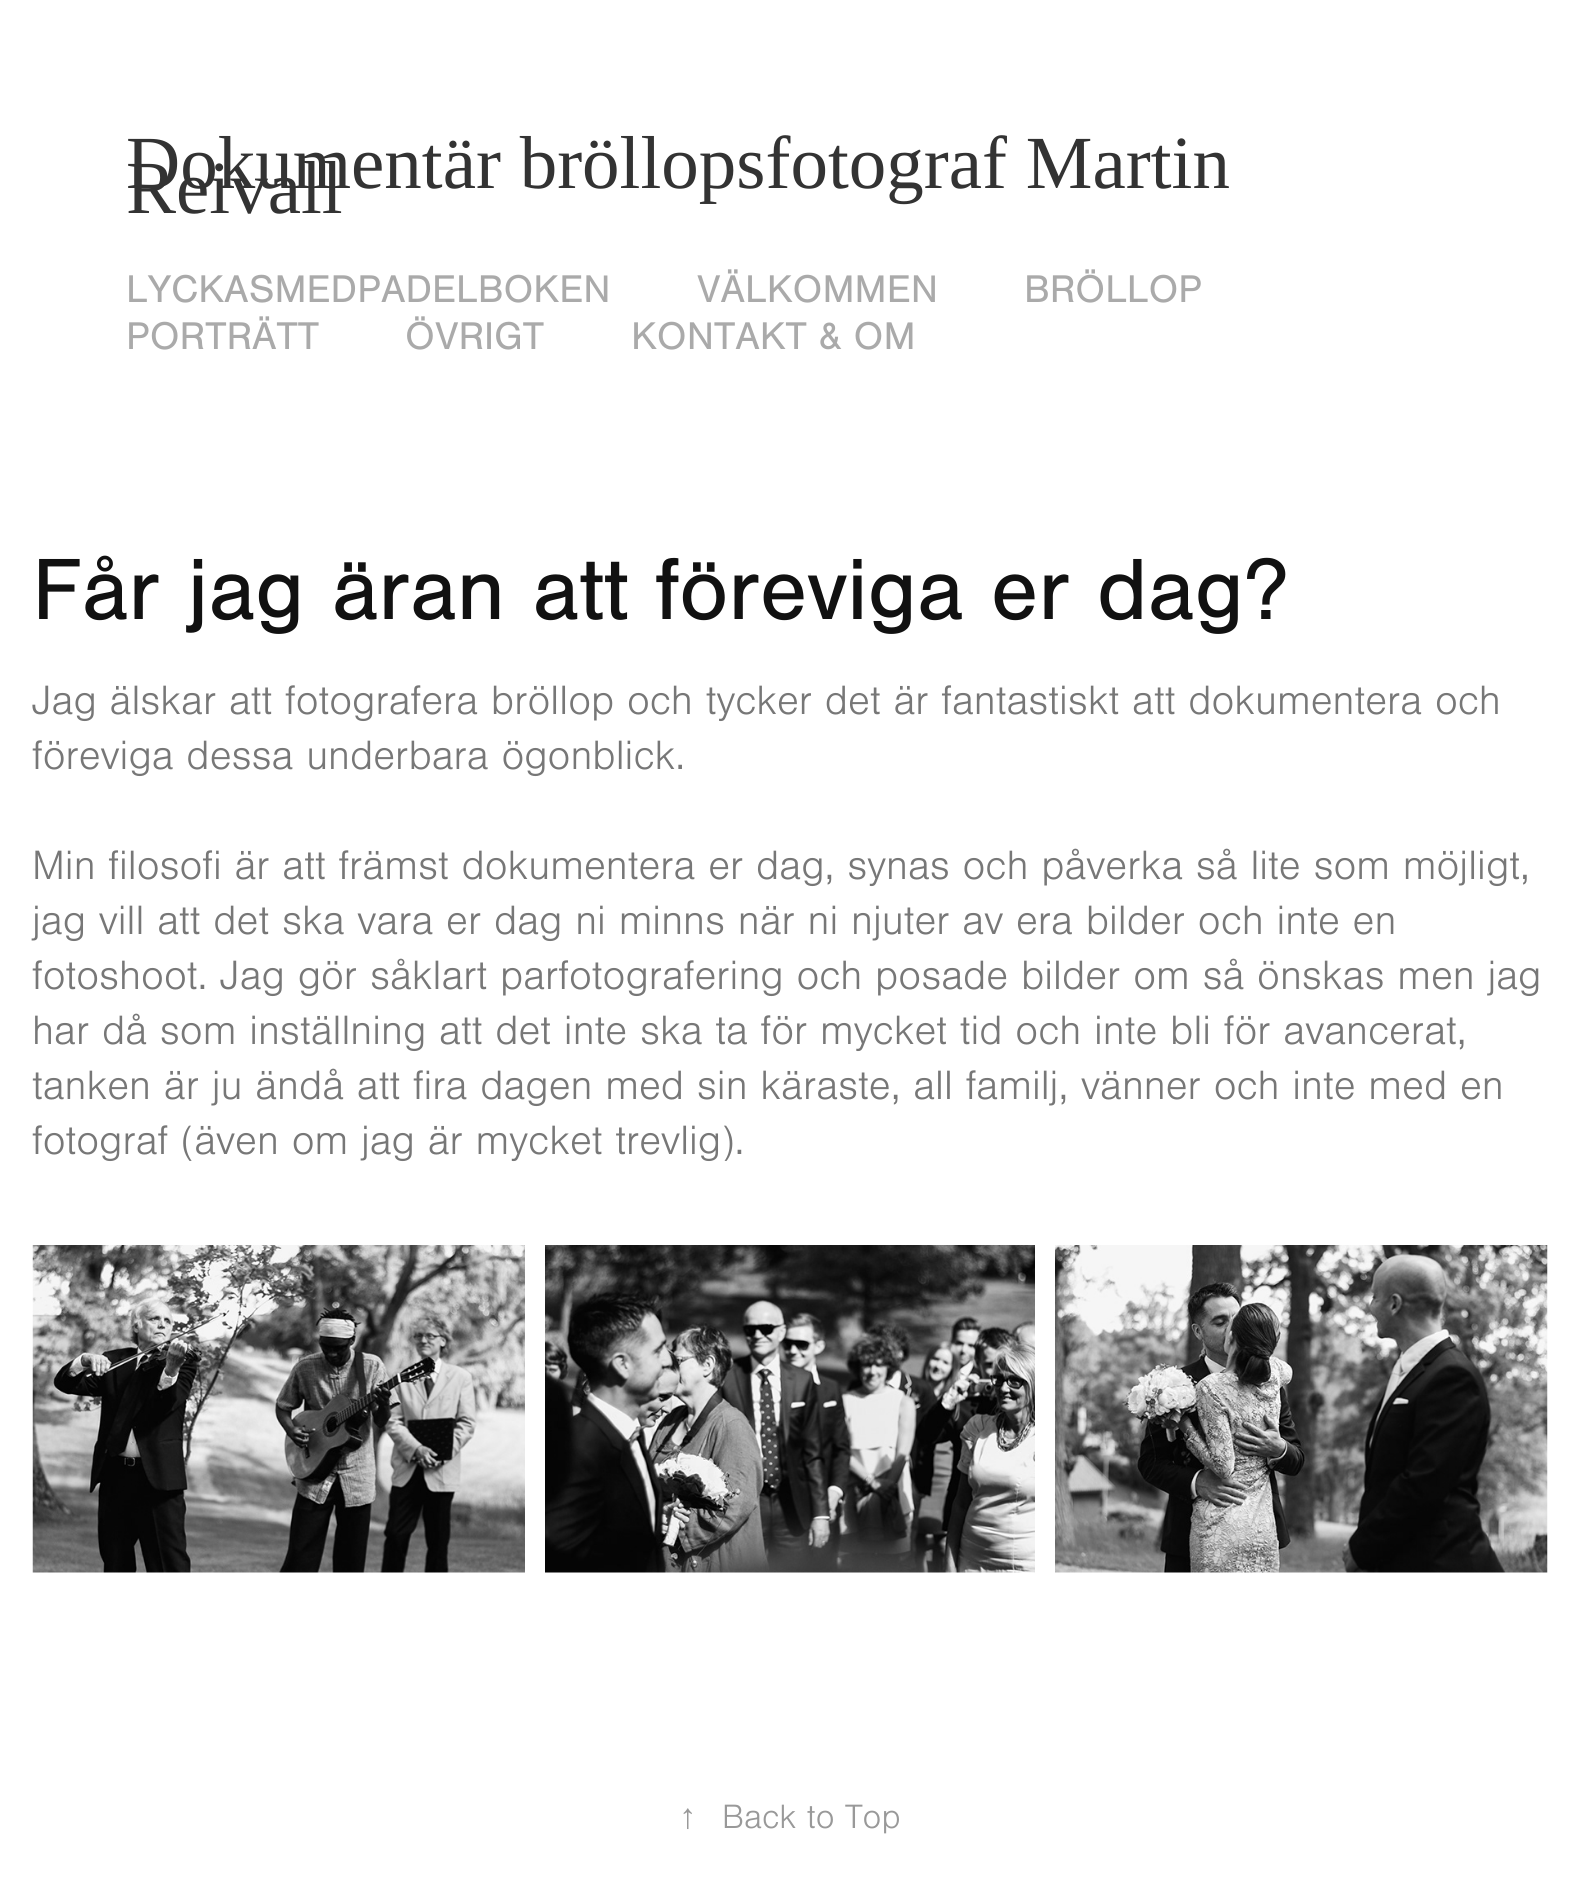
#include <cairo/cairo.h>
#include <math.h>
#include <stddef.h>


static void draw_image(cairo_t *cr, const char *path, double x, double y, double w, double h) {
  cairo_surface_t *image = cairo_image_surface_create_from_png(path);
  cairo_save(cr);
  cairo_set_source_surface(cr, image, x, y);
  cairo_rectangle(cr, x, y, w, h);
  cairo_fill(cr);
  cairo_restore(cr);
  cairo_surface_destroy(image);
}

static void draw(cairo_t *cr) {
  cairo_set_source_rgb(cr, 1, 1, 1);
  cairo_paint(cr);
  draw_image(cr, "images/1.png", 32, 1245, 493, 328);
  draw_image(cr, "images/2.png", 545, 1245, 490, 328);
  draw_image(cr, "images/3.png", 1055, 1245, 493, 328);
  cairo_select_font_face(cr, "Liberation Serif", CAIRO_FONT_SLANT_NORMAL, CAIRO_FONT_WEIGHT_NORMAL);
  cairo_set_font_size(cr, 75);
  cairo_set_source_rgb(cr, 51 / 255.0, 51 / 255.0, 51 / 255.0);
  cairo_move_to(cr, 126, 188);
  cairo_show_text(cr, "Dokumentär bröllopsfotograf Martin");
  cairo_move_to(cr, 126, 213);
  cairo_show_text(cr, "Reivall");
  cairo_select_font_face(cr, "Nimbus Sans", CAIRO_FONT_SLANT_NORMAL, CAIRO_FONT_WEIGHT_NORMAL);
  cairo_set_font_size(cr, 40);
  cairo_set_source_rgb(cr, 170 / 255.0, 170 / 255.0, 170 / 255.0);
  cairo_move_to(cr, 126, 302);
  cairo_show_text(cr, "LYCKASMEDPADELBOKEN");
  cairo_move_to(cr, 697, 302);
  cairo_show_text(cr, "VÄLKOMMEN");
  cairo_move_to(cr, 1024, 302);
  cairo_show_text(cr, "BRÖLLOP");
  cairo_move_to(cr, 126, 349);
  cairo_show_text(cr, "PORTRÄTT");
  cairo_move_to(cr, 405, 349);
  cairo_show_text(cr, "ÖVRIGT");
  cairo_move_to(cr, 631, 349);
  cairo_show_text(cr, "KONTAKT & OM");
  cairo_set_font_size(cr, 90);
  cairo_set_source_rgb(cr, 17 / 255.0, 17 / 255.0, 17 / 255.0);
  cairo_move_to(cr, 32, 619);
  cairo_show_text(cr, "Får jag äran att föreviga er dag?");
  cairo_select_font_face(cr, "Nimbus Sans Light", CAIRO_FONT_SLANT_NORMAL, CAIRO_FONT_WEIGHT_NORMAL);
  cairo_set_font_size(cr, 42.5);
  cairo_set_source_rgb(cr, 119 / 255.0, 119 / 255.0, 119 / 255.0);
  cairo_move_to(cr, 32, 714);
  cairo_show_text(cr, "Jag älskar att fotografera bröllop och tycker det är fantastiskt att dokumentera och");
  cairo_move_to(cr, 32, 769);
  cairo_show_text(cr, "föreviga dessa underbara ögonblick.");
  cairo_move_to(cr, 32, 879);
  cairo_show_text(cr, "Min filosofi är att främst dokumentera er dag, synas och påverka så lite som möjligt,");
  cairo_move_to(cr, 32, 934);
  cairo_show_text(cr, "jag vill att det ska vara er dag ni minns när ni njuter av era bilder och inte en");
  cairo_move_to(cr, 32, 989);
  cairo_show_text(cr, "fotoshoot. Jag gör såklart parfotografering och posade bilder om så önskas men jag");
  cairo_move_to(cr, 32, 1044);
  cairo_show_text(cr, "har då som inställning att det inte ska ta för mycket tid och inte bli för avancerat,");
  cairo_move_to(cr, 32, 1099);
  cairo_show_text(cr, "tanken är ju ändå att fira dagen med sin käraste, all familj, vänner och inte med en");
  cairo_move_to(cr, 32, 1154);
  cairo_show_text(cr, "fotograf (även om jag är mycket trevlig).");
  cairo_select_font_face(cr, "Liberation Serif", CAIRO_FONT_SLANT_NORMAL, CAIRO_FONT_WEIGHT_NORMAL);
  cairo_set_font_size(cr, 35);
  cairo_set_source_rgb(cr, 153 / 255.0, 153 / 255.0, 153 / 255.0);
  cairo_move_to(cr, 679, 1828);
  cairo_show_text(cr, "↑");
  cairo_select_font_face(cr, "Nimbus Sans Light", CAIRO_FONT_SLANT_NORMAL, CAIRO_FONT_WEIGHT_NORMAL);
  cairo_move_to(cr, 722, 1828);
  cairo_show_text(cr, "Back to Top");
}

int main(void) {
  cairo_surface_t *surface = cairo_image_surface_create(CAIRO_FORMAT_RGB24, 1579, 1903);
  cairo_t *cr = cairo_create(surface);
  cairo_font_options_t *options = cairo_font_options_create();
  cairo_font_options_set_hint_metrics(options, CAIRO_HINT_METRICS_OFF);
  cairo_font_options_set_hint_style(options, CAIRO_HINT_STYLE_NONE);
  cairo_set_font_options(cr, options);
  cairo_set_miter_limit(cr, 4);
  draw(cr);
  cairo_surface_write_to_png(surface, "out.png");
  cairo_font_options_destroy(options);
  cairo_destroy(cr);
  cairo_surface_destroy(surface);
  return 0;
}
